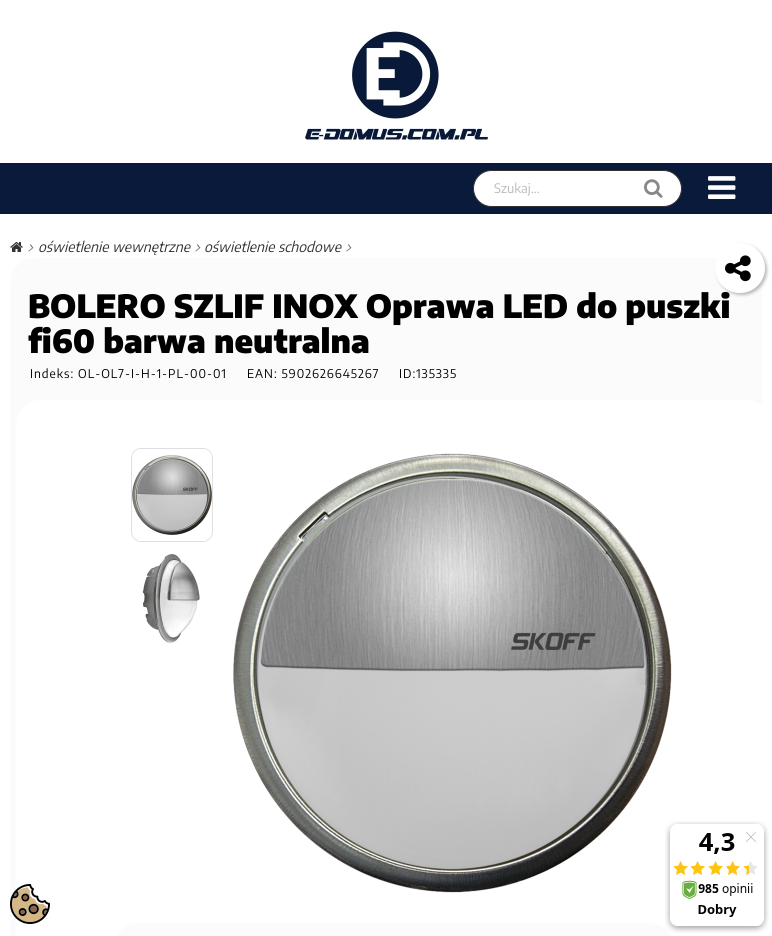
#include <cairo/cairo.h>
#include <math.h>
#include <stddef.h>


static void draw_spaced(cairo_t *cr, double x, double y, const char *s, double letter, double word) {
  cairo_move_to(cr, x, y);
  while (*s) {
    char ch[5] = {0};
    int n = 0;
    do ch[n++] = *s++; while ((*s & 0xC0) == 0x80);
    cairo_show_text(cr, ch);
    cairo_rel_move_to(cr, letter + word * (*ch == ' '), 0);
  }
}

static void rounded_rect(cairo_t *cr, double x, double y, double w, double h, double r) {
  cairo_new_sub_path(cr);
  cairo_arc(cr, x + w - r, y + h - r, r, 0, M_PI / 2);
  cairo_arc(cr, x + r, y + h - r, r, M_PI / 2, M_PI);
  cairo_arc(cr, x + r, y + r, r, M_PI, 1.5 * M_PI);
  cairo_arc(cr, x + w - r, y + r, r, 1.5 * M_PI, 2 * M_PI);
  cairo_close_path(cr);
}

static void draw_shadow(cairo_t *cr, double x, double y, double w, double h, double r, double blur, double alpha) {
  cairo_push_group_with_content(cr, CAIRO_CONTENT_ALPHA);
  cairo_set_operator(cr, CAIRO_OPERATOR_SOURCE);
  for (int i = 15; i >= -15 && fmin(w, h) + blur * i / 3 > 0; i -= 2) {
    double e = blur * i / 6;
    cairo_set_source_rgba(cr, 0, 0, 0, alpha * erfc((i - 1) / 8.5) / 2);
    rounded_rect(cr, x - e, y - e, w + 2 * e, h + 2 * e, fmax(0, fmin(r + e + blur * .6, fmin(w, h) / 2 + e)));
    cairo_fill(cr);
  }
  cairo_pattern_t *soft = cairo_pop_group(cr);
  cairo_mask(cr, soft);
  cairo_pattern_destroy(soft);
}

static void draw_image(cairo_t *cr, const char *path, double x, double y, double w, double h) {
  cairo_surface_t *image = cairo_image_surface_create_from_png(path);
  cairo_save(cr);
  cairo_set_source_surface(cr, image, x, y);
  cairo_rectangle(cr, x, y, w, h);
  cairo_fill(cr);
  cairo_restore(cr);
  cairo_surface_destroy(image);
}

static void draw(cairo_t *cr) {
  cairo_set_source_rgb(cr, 1, 1, 1);
  cairo_paint(cr);
  draw_image(cr, "images/1.png", 305, 31, 183, 110);
  cairo_set_source_rgb(cr, 10 / 255.0, 26 / 255.0, 58 / 255.0);
  cairo_rectangle(cr, 0, 163, 772, 51);
  cairo_fill(cr);
  cairo_set_source_rgb(cr, 1, 1, 1);
  rounded_rect(cr, 473.5, 170.5, 208, 36, 18);
  cairo_fill_preserve(cr);
  cairo_set_source_rgb(cr, 51 / 255.0, 51 / 255.0, 51 / 255.0);
  cairo_set_line_width(cr, 1);
  cairo_stroke(cr);
  draw_image(cr, "images/2.png", 644, 179, 19, 19);
  draw_image(cr, "images/3.png", 708, 176, 28, 23);
  draw_image(cr, "images/4.png", 10, 242, 13, 10);
  draw_image(cr, "images/5.png", 28, 244, 6, 8);
  draw_image(cr, "images/5.png", 195, 244, 6, 8);
  draw_image(cr, "images/5.png", 346, 244, 6, 8);
  cairo_set_source_rgb(cr, 251 / 255.0, 251 / 255.0, 251 / 255.0);
  rounded_rect(cr, 10, 258, 752, 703, 25);
  cairo_fill(cr);
  cairo_set_source_rgb(cr, 187 / 255.0, 187 / 255.0, 187 / 255.0);
  draw_shadow(cr, 717, 245, 50, 50, 25, 1.5, 1);
  cairo_set_source_rgb(cr, 1, 1, 1);
  rounded_rect(cr, 16, 400, 756, 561, 25);
  cairo_fill(cr);
  rounded_rect(cr, 131.5, 448.5, 81, 93, 9.5);
  cairo_set_source_rgb(cr, 223 / 255.0, 223 / 255.0, 223 / 255.0);
  cairo_stroke(cr);
  draw_image(cr, "images/7.png", 132, 449, 80, 92);
  draw_image(cr, "images/8.png", 142, 554, 58, 89);
  draw_image(cr, "images/9.png", 233, 453, 439, 440);
  cairo_set_source_rgb(cr, 251 / 255.0, 251 / 255.0, 251 / 255.0);
  rounded_rect(cr, 114, 923, 560, 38, 25);
  cairo_fill(cr);
  draw_image(cr, "images/10.png", 10, 884, 40, 40);
  draw_image(cr, "images/11.png", 665, 821, 104, 112);
  cairo_select_font_face(cr, "Encode Sans Condensed", CAIRO_FONT_SLANT_NORMAL, CAIRO_FONT_WEIGHT_NORMAL);
  cairo_set_font_size(cr, 13);
  cairo_set_source_rgb(cr, 186 / 255.0, 186 / 255.0, 186 / 255.0);
  cairo_move_to(cr, 494, 193);
  cairo_show_text(cr, "Szukaj...");
  cairo_select_font_face(cr, "Encode Sans Condensed", CAIRO_FONT_SLANT_ITALIC, CAIRO_FONT_WEIGHT_NORMAL);
  cairo_set_font_size(cr, 14);
  cairo_set_source_rgb(cr, 51 / 255.0, 51 / 255.0, 51 / 255.0);
  cairo_move_to(cr, 38, 252);
  cairo_show_text(cr, "oświetlenie wewnętrzne");
  cairo_move_to(cr, 204, 252);
  cairo_show_text(cr, "oświetlenie schodowe");
  cairo_select_font_face(cr, "Encode Sans Condensed Black", CAIRO_FONT_SLANT_NORMAL, CAIRO_FONT_WEIGHT_NORMAL);
  cairo_set_font_size(cr, 32);
  cairo_set_source_rgb(cr, 0, 0, 0);
  cairo_move_to(cr, 28, 318);
  cairo_show_text(cr, "BOLERO SZLIF INOX Oprawa LED do puszki");
  cairo_move_to(cr, 28, 353);
  cairo_show_text(cr, "fi60 barwa neutralna");
  cairo_set_source_rgb(cr, 1, 1, 1);
  cairo_new_path(cr);
  cairo_arc(cr, 740, 268, 25, 0, 2 * M_PI);
  cairo_fill(cr);
  draw_image(cr, "images/6.png", 725, 255, 26, 27);
  cairo_select_font_face(cr, "Encode Sans Condensed", CAIRO_FONT_SLANT_NORMAL, CAIRO_FONT_WEIGHT_NORMAL);
  cairo_set_font_size(cr, 12);
  cairo_set_source_rgb(cr, 0, 0, 0);
  draw_spaced(cr, 30, 378, "Indeks: OL-OL7-I-H-1-PL-00-01", 1, 0);
  draw_spaced(cr, 247, 378, "EAN: 5902626645267", 1, 0);
  draw_spaced(cr, 399, 378, "ID:135335", 1, 0);
}

int main(void) {
  cairo_surface_t *surface = cairo_image_surface_create(CAIRO_FORMAT_RGB24, 772, 936);
  cairo_t *cr = cairo_create(surface);
  cairo_font_options_t *options = cairo_font_options_create();
  cairo_font_options_set_hint_metrics(options, CAIRO_HINT_METRICS_OFF);
  cairo_font_options_set_hint_style(options, CAIRO_HINT_STYLE_NONE);
  cairo_set_font_options(cr, options);
  cairo_set_miter_limit(cr, 4);
  draw(cr);
  cairo_surface_write_to_png(surface, "out.png");
  cairo_font_options_destroy(options);
  cairo_destroy(cr);
  cairo_surface_destroy(surface);
  return 0;
}
